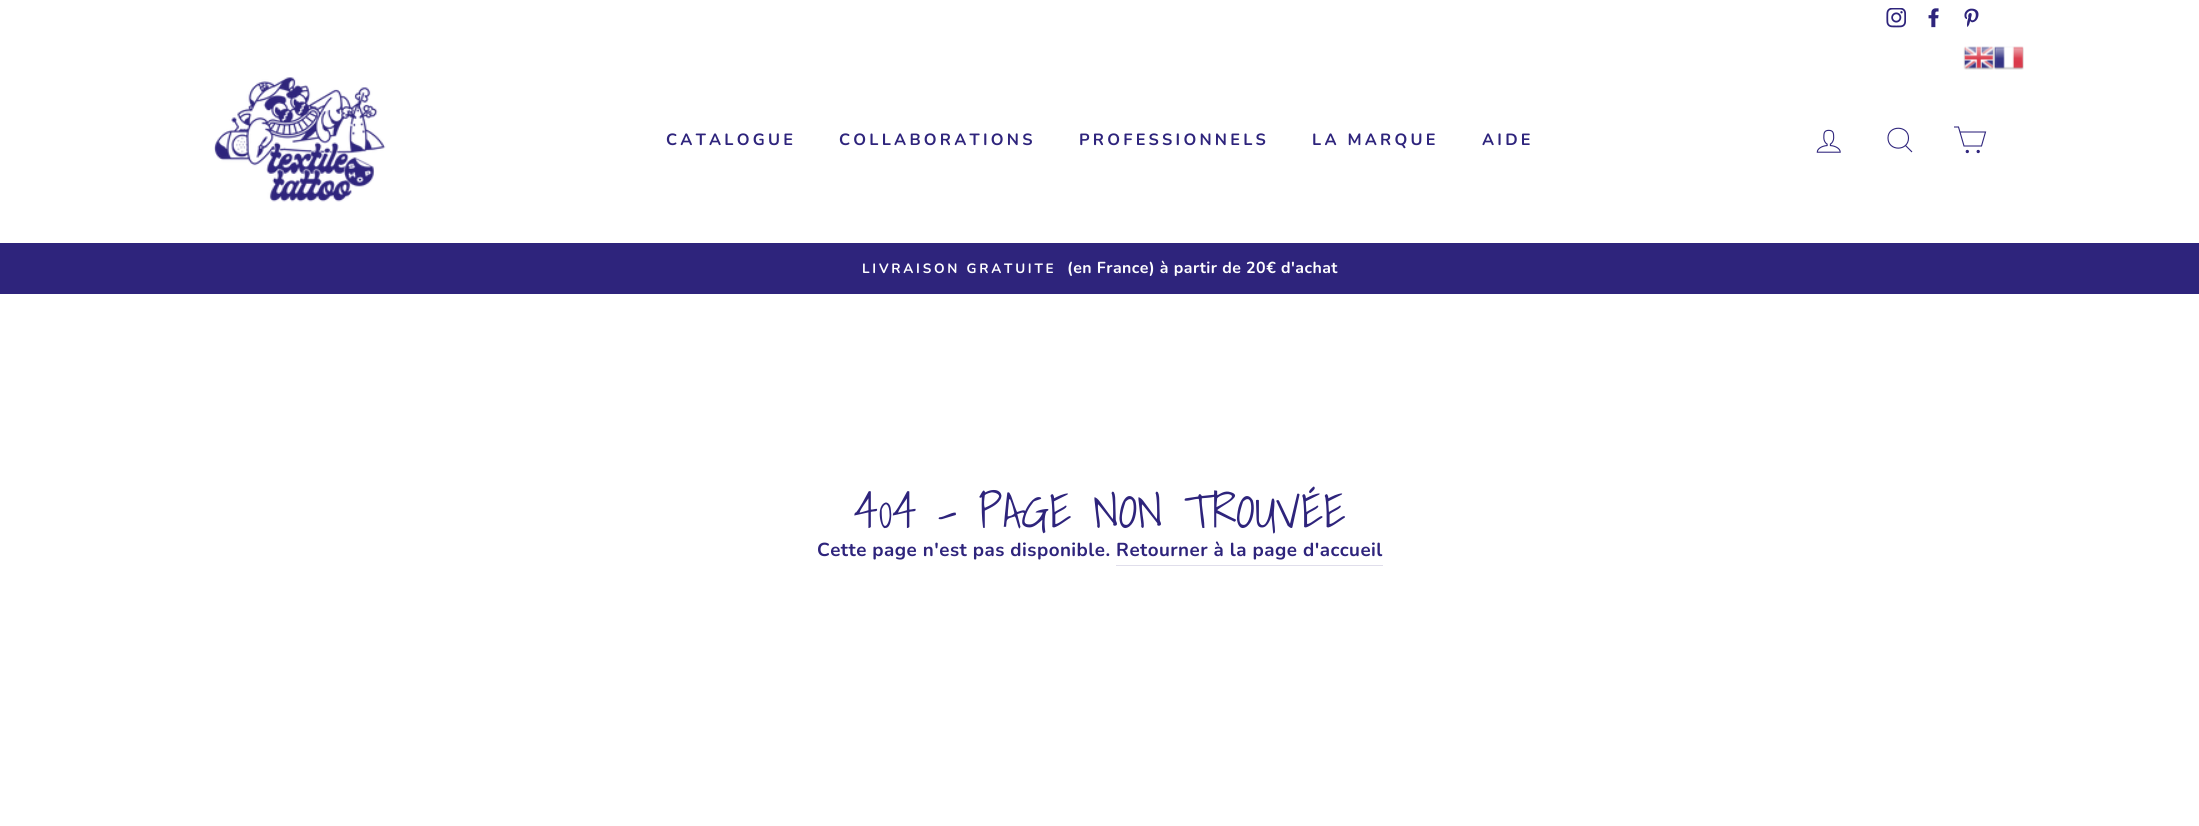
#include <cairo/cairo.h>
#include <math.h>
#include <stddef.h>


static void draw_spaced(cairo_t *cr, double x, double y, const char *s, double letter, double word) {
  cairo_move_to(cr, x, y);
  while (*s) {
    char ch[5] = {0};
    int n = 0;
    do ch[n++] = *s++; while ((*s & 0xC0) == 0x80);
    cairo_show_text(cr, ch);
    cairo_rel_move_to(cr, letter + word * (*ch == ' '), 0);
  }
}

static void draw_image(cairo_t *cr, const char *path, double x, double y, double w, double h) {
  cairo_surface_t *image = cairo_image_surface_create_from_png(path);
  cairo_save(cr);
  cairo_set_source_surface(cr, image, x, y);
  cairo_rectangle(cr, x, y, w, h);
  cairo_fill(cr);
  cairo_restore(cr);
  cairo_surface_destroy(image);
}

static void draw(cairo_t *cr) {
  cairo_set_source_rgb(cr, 1, 1, 1);
  cairo_paint(cr);
  draw_image(cr, "images/1.png", 1963, 46, 31, 24);
  draw_image(cr, "images/2.png", 1993, 46, 31, 24);
  draw_image(cr, "images/3.png", 1886, 8, 20, 20);
  draw_image(cr, "images/4.png", 1928, 8, 11, 20);
  draw_image(cr, "images/5.png", 1964, 8, 15, 19);
  draw_image(cr, "images/6.png", 214, 77, 172, 125);
  draw_image(cr, "images/7.png", 1816, 129, 25, 24);
  cairo_new_path(cr);
  cairo_move_to(cr, 1908.5, 138);
  cairo_curve_to(cr, 1908.5, 151.5, 1888, 151.5, 1888, 138);
  cairo_curve_to(cr, 1888, 125, 1908.5, 125, 1908.5, 138);
  cairo_close_path(cr);
  cairo_move_to(cr, 1912, 152);
  cairo_line_to(cr, 1905.5, 145.5);
  cairo_set_source_rgb(cr, 46 / 255.0, 36 / 255.0, 124 / 255.0);
  cairo_set_line_width(cr, 1.1);
  cairo_stroke(cr);
  cairo_new_path(cr);
  cairo_move_to(cr, 1960, 132);
  cairo_line_to(cr, 1985.5, 132);
  cairo_line_to(cr, 1981.5, 146);
  cairo_line_to(cr, 1964, 146);
  cairo_line_to(cr, 1958.5, 127);
  cairo_line_to(cr, 1954, 127);
  cairo_stroke(cr);
  cairo_arc(cr, 1967.3, 151.5, 1.1, 0, 2 * M_PI);
  cairo_fill_preserve(cr);
  cairo_stroke(cr);
  cairo_arc(cr, 1978.2, 151.5, 1.1, 0, 2 * M_PI);
  cairo_fill_preserve(cr);
  cairo_stroke(cr);
  cairo_rectangle(cr, 0, 243, 2199, 51);
  cairo_fill(cr);
  cairo_set_source_rgb(cr, 224 / 255.0, 222 / 255.0, 235 / 255.0);
  cairo_rectangle(cr, 1116, 565, 267, 1);
  cairo_fill(cr);
  cairo_select_font_face(cr, "Nunito", CAIRO_FONT_SLANT_NORMAL, CAIRO_FONT_WEIGHT_BOLD);
  cairo_set_font_size(cr, 16.25);
  cairo_set_source_rgb(cr, 46 / 255.0, 36 / 255.0, 124 / 255.0);
  draw_spaced(cr, 666, 145, "CATALOGUE", 3.25, 0);
  draw_spaced(cr, 839, 145, "COLLABORATIONS", 3.25, 0);
  draw_spaced(cr, 1079, 145, "PROFESSIONNELS", 3.25, 0);
  draw_spaced(cr, 1312, 145, "LA MARQUE", 3.25, 0);
  draw_spaced(cr, 1482, 145, "AIDE", 3.25, 0);
  cairo_set_font_size(cr, 13.5);
  cairo_set_source_rgb(cr, 1, 1, 1);
  draw_spaced(cr, 862, 273, "LIVRAISON GRATUITE", 2.75, 0);
  cairo_set_font_size(cr, 15.9);
  draw_spaced(cr, 1067, 273, "(en France) à partir de 20€ d'achat", 0.47, 0);
  cairo_select_font_face(cr, "Shadows Into Light", CAIRO_FONT_SLANT_NORMAL, CAIRO_FONT_WEIGHT_NORMAL);
  cairo_set_font_size(cr, 47.5);
  cairo_set_source_rgb(cr, 46 / 255.0, 36 / 255.0, 124 / 255.0);
  cairo_move_to(cr, 854, 528);
  cairo_show_text(cr, "404 - PAGE NON TROUVÉE");
  cairo_select_font_face(cr, "Nunito", CAIRO_FONT_SLANT_NORMAL, CAIRO_FONT_WEIGHT_BOLD);
  cairo_set_font_size(cr, 18.75);
  draw_spaced(cr, 817, 556, "Cette page n'est pas disponible. Retourner à la page d'accueil", 0.47, 0);
}

int main(void) {
  cairo_surface_t *surface = cairo_image_surface_create(CAIRO_FORMAT_RGB24, 2199, 826);
  cairo_t *cr = cairo_create(surface);
  cairo_font_options_t *options = cairo_font_options_create();
  cairo_font_options_set_hint_metrics(options, CAIRO_HINT_METRICS_OFF);
  cairo_font_options_set_hint_style(options, CAIRO_HINT_STYLE_NONE);
  cairo_set_font_options(cr, options);
  cairo_set_miter_limit(cr, 4);
  draw(cr);
  cairo_surface_write_to_png(surface, "out.png");
  cairo_font_options_destroy(options);
  cairo_destroy(cr);
  cairo_surface_destroy(surface);
  return 0;
}
